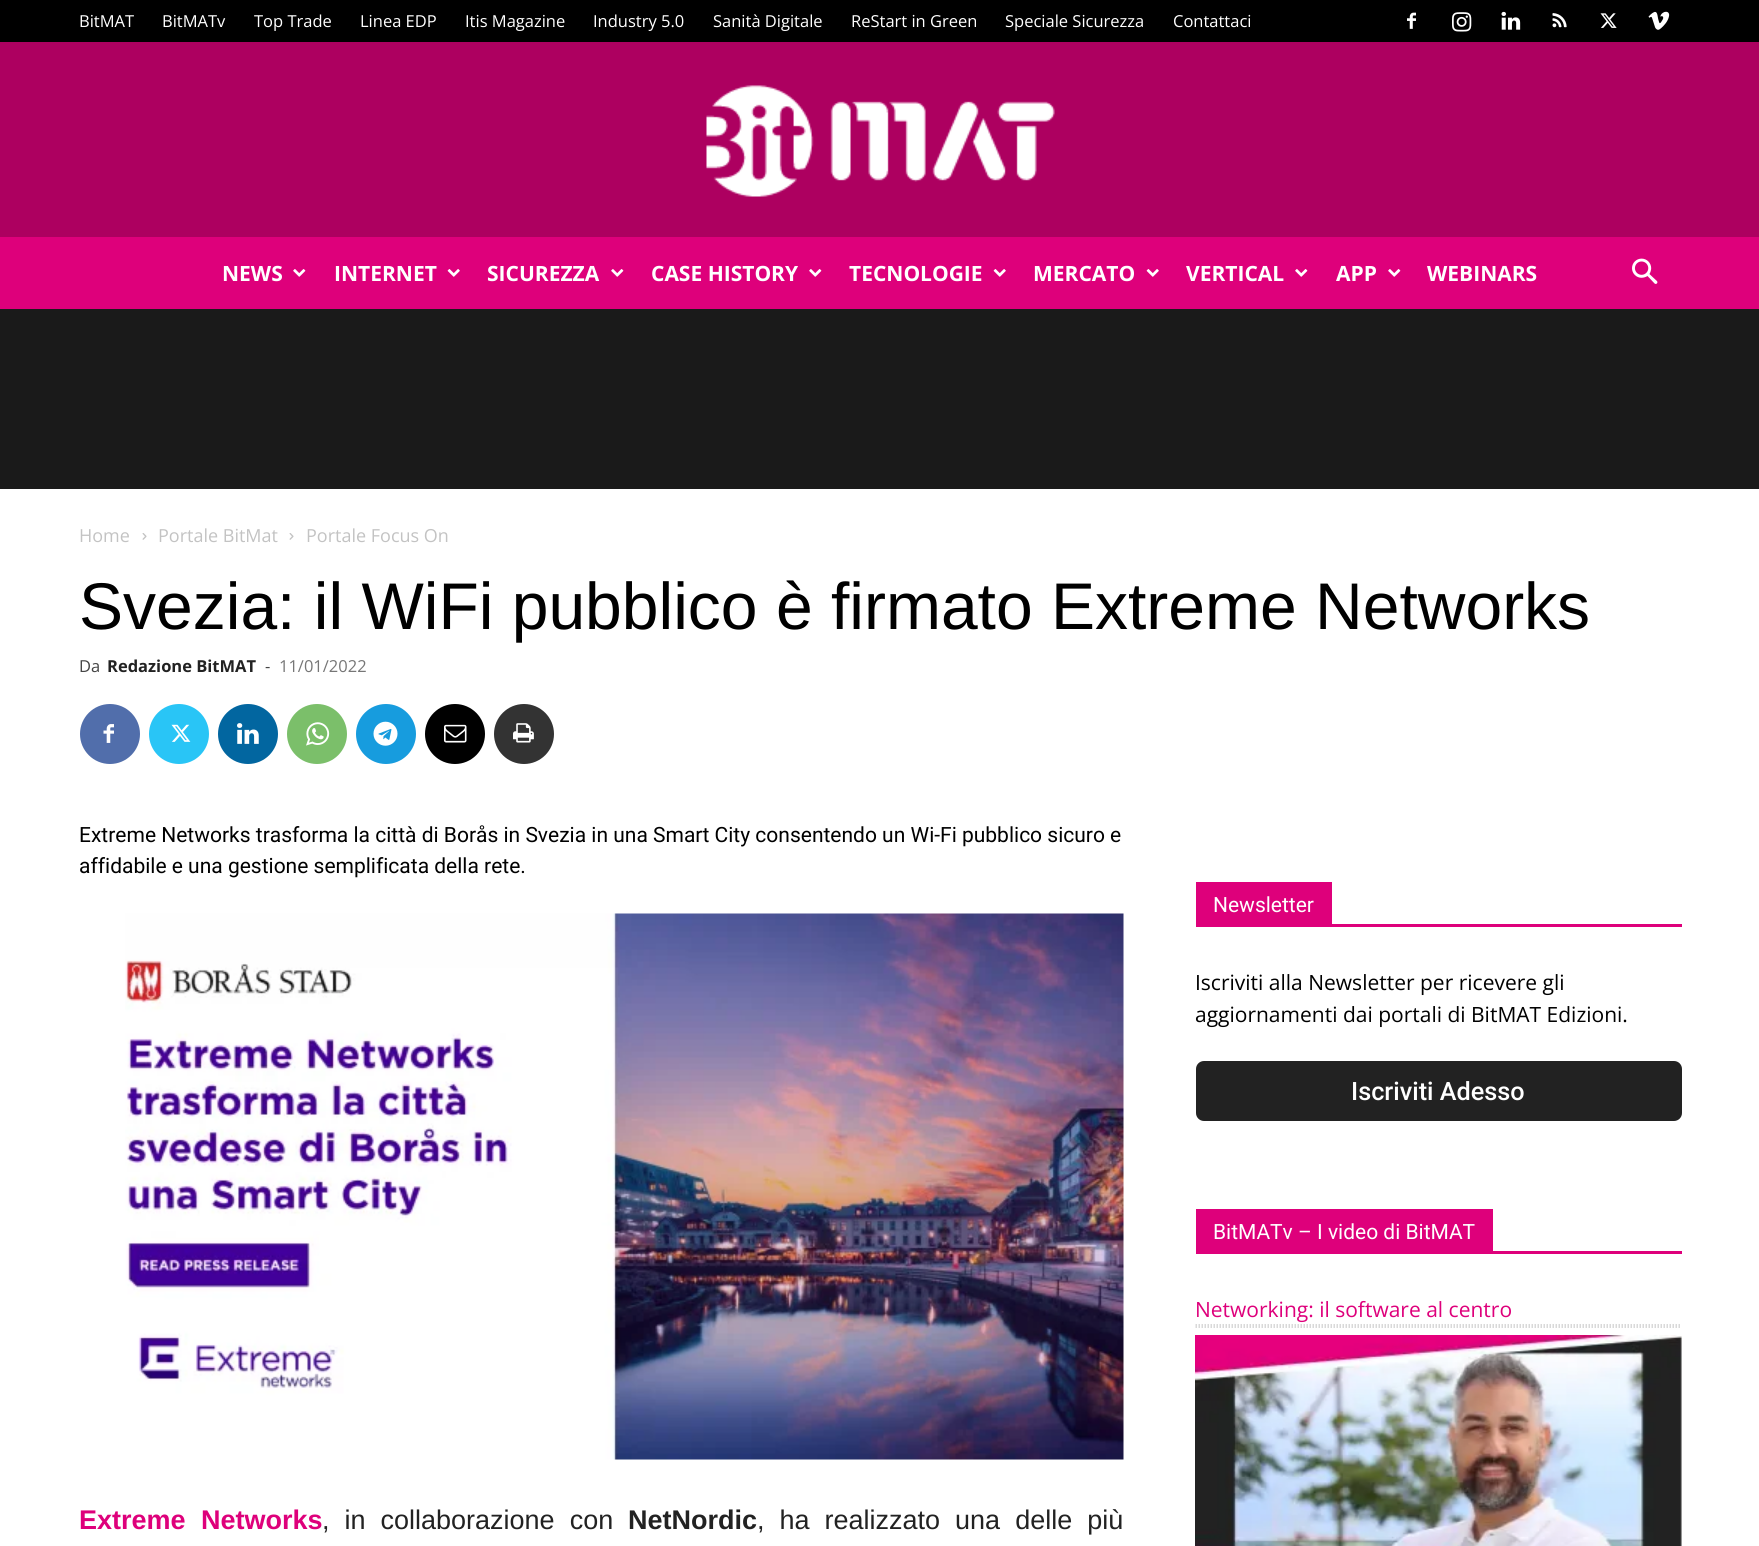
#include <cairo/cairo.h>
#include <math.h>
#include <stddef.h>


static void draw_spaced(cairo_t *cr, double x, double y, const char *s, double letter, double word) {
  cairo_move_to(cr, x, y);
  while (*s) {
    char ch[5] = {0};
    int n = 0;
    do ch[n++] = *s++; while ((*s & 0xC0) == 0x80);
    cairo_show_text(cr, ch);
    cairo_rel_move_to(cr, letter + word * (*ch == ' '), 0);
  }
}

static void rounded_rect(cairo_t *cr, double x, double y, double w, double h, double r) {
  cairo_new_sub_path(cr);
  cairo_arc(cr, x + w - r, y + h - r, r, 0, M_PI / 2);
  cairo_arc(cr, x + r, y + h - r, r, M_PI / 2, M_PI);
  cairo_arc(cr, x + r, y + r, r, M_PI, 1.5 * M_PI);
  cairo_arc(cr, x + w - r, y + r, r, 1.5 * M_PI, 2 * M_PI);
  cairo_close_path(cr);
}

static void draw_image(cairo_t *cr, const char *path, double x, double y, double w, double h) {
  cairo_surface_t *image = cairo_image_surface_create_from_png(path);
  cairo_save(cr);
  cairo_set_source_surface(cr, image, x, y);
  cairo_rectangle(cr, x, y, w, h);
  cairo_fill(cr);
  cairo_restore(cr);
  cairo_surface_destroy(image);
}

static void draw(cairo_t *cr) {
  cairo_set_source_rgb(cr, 26 / 255.0, 26 / 255.0, 26 / 255.0);
  cairo_paint(cr);
  cairo_set_source_rgb(cr, 0, 0, 0);
  cairo_rectangle(cr, 0, 0, 1759, 42);
  cairo_fill(cr);
  draw_image(cr, "images/1.png", 1407, 12, 9, 17);
  draw_image(cr, "images/2.png", 1452, 12, 20, 20);
  draw_image(cr, "images/3.png", 1501, 11, 20, 19);
  draw_image(cr, "images/4.png", 1552, 13, 15, 15);
  draw_image(cr, "images/5.png", 1600, 13, 17, 15);
  draw_image(cr, "images/6.png", 1648, 11, 22, 19);
  cairo_set_source_rgb(cr, 173 / 255.0, 0, 96 / 255.0);
  cairo_rectangle(cr, 0, 42, 1759, 195);
  cairo_fill(cr);
  draw_image(cr, "images/7.png", 706, 85, 349, 112);
  cairo_set_source_rgb(cr, 222 / 255.0, 0, 123 / 255.0);
  cairo_rectangle(cr, 0, 237, 1759, 72);
  cairo_fill(cr);
  draw_image(cr, "images/8.png", 293, 269, 13, 8);
  draw_image(cr, "images/9.png", 447, 269, 13, 8);
  draw_image(cr, "images/8.png", 611, 269, 13, 8);
  draw_image(cr, "images/8.png", 809, 269, 13, 8);
  draw_image(cr, "images/9.png", 993, 269, 13, 8);
  draw_image(cr, "images/9.png", 1146, 269, 13, 8);
  draw_image(cr, "images/8.png", 1295, 269, 13, 8);
  draw_image(cr, "images/8.png", 1388, 269, 13, 8);
  draw_image(cr, "images/10.png", 1632, 258, 26, 26);
  cairo_set_source_rgb(cr, 1, 1, 1);
  cairo_rectangle(cr, 0, 489, 1759, 1057);
  cairo_fill(cr);
  draw_image(cr, "images/11.png", 142, 533, 5, 7);
  draw_image(cr, "images/11.png", 289, 533, 5, 7);
  cairo_set_source_rgb(cr, 81 / 255.0, 110 / 255.0, 171 / 255.0);
  cairo_arc(cr, 110, 734, 30, 0, 2 * M_PI);
  cairo_fill(cr);
  draw_image(cr, "images/12.png", 103, 724, 11, 19);
  cairo_set_source_rgb(cr, 41 / 255.0, 197 / 255.0, 246 / 255.0);
  cairo_arc(cr, 179, 734, 30, 0, 2 * M_PI);
  cairo_fill(cr);
  draw_image(cr, "images/13.png", 171, 724, 20, 18);
  cairo_set_source_rgb(cr, 2 / 255.0, 102 / 255.0, 160 / 255.0);
  cairo_arc(cr, 248, 734, 30, 0, 2 * M_PI);
  cairo_fill(cr);
  draw_image(cr, "images/14.png", 237, 723, 22, 21);
  cairo_set_source_rgb(cr, 123 / 255.0, 191 / 255.0, 106 / 255.0);
  cairo_arc(cr, 317, 734, 30, 0, 2 * M_PI);
  cairo_fill(cr);
  draw_image(cr, "images/15.png", 306, 722, 24, 24);
  cairo_set_source_rgb(cr, 23 / 255.0, 156 / 255.0, 222 / 255.0);
  cairo_arc(cr, 386, 734, 30, 0, 2 * M_PI);
  cairo_fill(cr);
  draw_image(cr, "images/16.png", 373, 721, 25, 25);
  cairo_set_source_rgb(cr, 0, 0, 0);
  cairo_arc(cr, 455, 734, 30, 0, 2 * M_PI);
  cairo_fill(cr);
  draw_image(cr, "images/17.png", 444, 724, 23, 19);
  cairo_set_source_rgb(cr, 51 / 255.0, 51 / 255.0, 51 / 255.0);
  cairo_arc(cr, 524, 734, 30, 0, 2 * M_PI);
  cairo_fill(cr);
  draw_image(cr, "images/18.png", 513, 723, 21, 20);
  draw_image(cr, "images/19.png", 125, 913, 999, 547);
  cairo_set_source_rgb(cr, 222 / 255.0, 0, 123 / 255.0);
  cairo_rectangle(cr, 1196, 924, 486, 3);
  cairo_fill(cr);
  cairo_rectangle(cr, 1196, 882, 136, 42);
  cairo_fill(cr);
  cairo_set_source_rgb(cr, 34 / 255.0, 34 / 255.0, 34 / 255.0);
  rounded_rect(cr, 1196, 1061, 486, 60, 8);
  cairo_fill(cr);
  cairo_set_source_rgb(cr, 222 / 255.0, 0, 123 / 255.0);
  cairo_rectangle(cr, 1196, 1251, 486, 3);
  cairo_fill(cr);
  cairo_rectangle(cr, 1196, 1209, 297, 42);
  cairo_fill(cr);
  cairo_new_path(cr);
  cairo_move_to(cr, 1195.5, 1325);
  cairo_line_to(cr, 1681.5, 1325);
  cairo_set_source_rgb(cr, 204 / 255.0, 204 / 255.0, 204 / 255.0);
  cairo_set_line_width(cr, 1.5);
  cairo_set_dash(cr, (double[]){1.5, 1.5}, 2, 0);
  cairo_stroke(cr);
  cairo_new_path(cr);
  cairo_move_to(cr, 1195.5, 1327);
  cairo_line_to(cr, 1681.5, 1327);
  cairo_stroke(cr);
  draw_image(cr, "images/20.png", 1195, 1335, 487, 211);
  cairo_select_font_face(cr, "Open Sans", CAIRO_FONT_SLANT_NORMAL, CAIRO_FONT_WEIGHT_NORMAL);
  cairo_set_font_size(cr, 16.5);
  cairo_set_source_rgb(cr, 1, 1, 1);
  cairo_move_to(cr, 79, 27);
  cairo_show_text(cr, "BitMAT");
  cairo_move_to(cr, 162, 27);
  cairo_show_text(cr, "BitMATv");
  cairo_move_to(cr, 254, 27);
  cairo_show_text(cr, "Top Trade");
  cairo_move_to(cr, 360, 27);
  cairo_show_text(cr, "Linea EDP");
  cairo_move_to(cr, 465, 27);
  cairo_show_text(cr, "Itis Magazine");
  cairo_move_to(cr, 593, 27);
  cairo_show_text(cr, "Industry 5.0");
  cairo_move_to(cr, 713, 27);
  cairo_show_text(cr, "Sanità Digitale");
  cairo_move_to(cr, 851, 27);
  cairo_show_text(cr, "ReStart in Green");
  cairo_move_to(cr, 1005, 27);
  cairo_show_text(cr, "Speciale Sicurezza");
  cairo_move_to(cr, 1173, 27);
  cairo_show_text(cr, "Contattaci");
  cairo_select_font_face(cr, "Open Sans", CAIRO_FONT_SLANT_NORMAL, CAIRO_FONT_WEIGHT_BOLD);
  cairo_set_font_size(cr, 21);
  cairo_move_to(cr, 222, 281);
  cairo_show_text(cr, "NEWS");
  cairo_move_to(cr, 334, 281);
  cairo_show_text(cr, "INTERNET");
  cairo_move_to(cr, 487, 281);
  cairo_show_text(cr, "SICUREZZA");
  cairo_move_to(cr, 651, 281);
  cairo_show_text(cr, "CASE HISTORY");
  cairo_move_to(cr, 849, 281);
  cairo_show_text(cr, "TECNOLOGIE");
  cairo_move_to(cr, 1033, 281);
  cairo_show_text(cr, "MERCATO");
  cairo_move_to(cr, 1186, 281);
  cairo_show_text(cr, "VERTICAL");
  cairo_move_to(cr, 1336, 281);
  cairo_show_text(cr, "APP");
  cairo_move_to(cr, 1427, 281);
  cairo_show_text(cr, "WEBINARS");
  cairo_select_font_face(cr, "Open Sans", CAIRO_FONT_SLANT_NORMAL, CAIRO_FONT_WEIGHT_NORMAL);
  cairo_set_font_size(cr, 18);
  cairo_set_source_rgb(cr, 195 / 255.0, 195 / 255.0, 195 / 255.0);
  cairo_move_to(cr, 79, 542);
  cairo_show_text(cr, "Home");
  cairo_move_to(cr, 158, 542);
  cairo_show_text(cr, "Portale BitMat");
  cairo_move_to(cr, 306, 542);
  cairo_show_text(cr, "Portale Focus On");
  cairo_select_font_face(cr, "Liberation Sans", CAIRO_FONT_SLANT_NORMAL, CAIRO_FONT_WEIGHT_NORMAL);
  cairo_set_font_size(cr, 66);
  cairo_set_source_rgb(cr, 0, 0, 0);
  cairo_move_to(cr, 79, 629);
  cairo_show_text(cr, "Svezia: il WiFi pubblico è firmato Extreme Networks");
  cairo_select_font_face(cr, "Open Sans", CAIRO_FONT_SLANT_NORMAL, CAIRO_FONT_WEIGHT_NORMAL);
  cairo_set_font_size(cr, 16.5);
  cairo_set_source_rgb(cr, 68 / 255.0, 68 / 255.0, 68 / 255.0);
  cairo_move_to(cr, 79, 672);
  cairo_show_text(cr, "Da");
  cairo_select_font_face(cr, "Open Sans", CAIRO_FONT_SLANT_NORMAL, CAIRO_FONT_WEIGHT_BOLD);
  cairo_set_source_rgb(cr, 34 / 255.0, 34 / 255.0, 34 / 255.0);
  cairo_move_to(cr, 107, 672);
  cairo_show_text(cr, "Redazione BitMAT");
  cairo_select_font_face(cr, "Open Sans", CAIRO_FONT_SLANT_NORMAL, CAIRO_FONT_WEIGHT_NORMAL);
  cairo_set_source_rgb(cr, 68 / 255.0, 68 / 255.0, 68 / 255.0);
  cairo_move_to(cr, 265, 672);
  cairo_show_text(cr, "-");
  cairo_set_source_rgb(cr, 118 / 255.0, 118 / 255.0, 118 / 255.0);
  cairo_move_to(cr, 279, 672);
  cairo_show_text(cr, "11/01/2022");
  cairo_select_font_face(cr, "Roboto", CAIRO_FONT_SLANT_NORMAL, CAIRO_FONT_WEIGHT_NORMAL);
  cairo_set_font_size(cr, 21);
  cairo_set_source_rgb(cr, 0, 0, 0);
  cairo_move_to(cr, 79, 842);
  cairo_show_text(cr, "Extreme Networks trasforma la città di Borås in Svezia in una Smart City consentendo un Wi-Fi pubblico sicuro e");
  cairo_move_to(cr, 79, 873);
  cairo_show_text(cr, "affidabile e una gestione semplificata della rete.");
  cairo_select_font_face(cr, "Liberation Sans", CAIRO_FONT_SLANT_NORMAL, CAIRO_FONT_WEIGHT_BOLD);
  cairo_set_font_size(cr, 27);
  cairo_set_source_rgb(cr, 222 / 255.0, 0, 123 / 255.0);
  draw_spaced(cr, 79, 1529, "Extreme Networks", 0, 8);
  cairo_select_font_face(cr, "Liberation Sans", CAIRO_FONT_SLANT_NORMAL, CAIRO_FONT_WEIGHT_NORMAL);
  cairo_set_source_rgb(cr, 34 / 255.0, 34 / 255.0, 34 / 255.0);
  draw_spaced(cr, 322, 1529, ", in collaborazione con", 0, 7.5);
  cairo_select_font_face(cr, "Liberation Sans", CAIRO_FONT_SLANT_NORMAL, CAIRO_FONT_WEIGHT_BOLD);
  cairo_move_to(cr, 628, 1529);
  cairo_show_text(cr, "NetNordic");
  cairo_select_font_face(cr, "Liberation Sans", CAIRO_FONT_SLANT_NORMAL, CAIRO_FONT_WEIGHT_NORMAL);
  draw_spaced(cr, 757, 1529, ", ha realizzato una delle più", 0, 7.5);
  cairo_select_font_face(cr, "Roboto", CAIRO_FONT_SLANT_NORMAL, CAIRO_FONT_WEIGHT_NORMAL);
  cairo_set_font_size(cr, 21);
  cairo_set_source_rgb(cr, 1, 1, 1);
  cairo_move_to(cr, 1213, 912);
  cairo_show_text(cr, "Newsletter");
  cairo_select_font_face(cr, "Open Sans", CAIRO_FONT_SLANT_NORMAL, CAIRO_FONT_WEIGHT_NORMAL);
  cairo_set_source_rgb(cr, 0, 0, 0);
  cairo_move_to(cr, 1195, 990);
  cairo_show_text(cr, "Iscriviti alla Newsletter per ricevere gli");
  cairo_move_to(cr, 1195, 1022);
  cairo_show_text(cr, "aggiornamenti dai portali di BitMAT Edizioni.");
  cairo_select_font_face(cr, "Roboto Medium", CAIRO_FONT_SLANT_NORMAL, CAIRO_FONT_WEIGHT_NORMAL);
  cairo_set_font_size(cr, 25.25);
  cairo_set_source_rgb(cr, 1, 1, 1);
  cairo_move_to(cr, 1351, 1100);
  cairo_show_text(cr, "Iscriviti Adesso");
  cairo_select_font_face(cr, "Roboto", CAIRO_FONT_SLANT_NORMAL, CAIRO_FONT_WEIGHT_NORMAL);
  cairo_set_font_size(cr, 21);
  cairo_move_to(cr, 1213, 1239);
  cairo_show_text(cr, "BitMATv – I video di BitMAT");
  cairo_select_font_face(cr, "Open Sans", CAIRO_FONT_SLANT_NORMAL, CAIRO_FONT_WEIGHT_NORMAL);
  cairo_set_source_rgb(cr, 222 / 255.0, 0, 123 / 255.0);
  cairo_move_to(cr, 1195, 1317);
  cairo_show_text(cr, "Networking: il software al centro");
}

int main(void) {
  cairo_surface_t *surface = cairo_image_surface_create(CAIRO_FORMAT_RGB24, 1759, 1546);
  cairo_t *cr = cairo_create(surface);
  cairo_font_options_t *options = cairo_font_options_create();
  cairo_font_options_set_hint_metrics(options, CAIRO_HINT_METRICS_OFF);
  cairo_font_options_set_hint_style(options, CAIRO_HINT_STYLE_NONE);
  cairo_set_font_options(cr, options);
  cairo_set_miter_limit(cr, 4);
  draw(cr);
  cairo_surface_write_to_png(surface, "out.png");
  cairo_font_options_destroy(options);
  cairo_destroy(cr);
  cairo_surface_destroy(surface);
  return 0;
}
